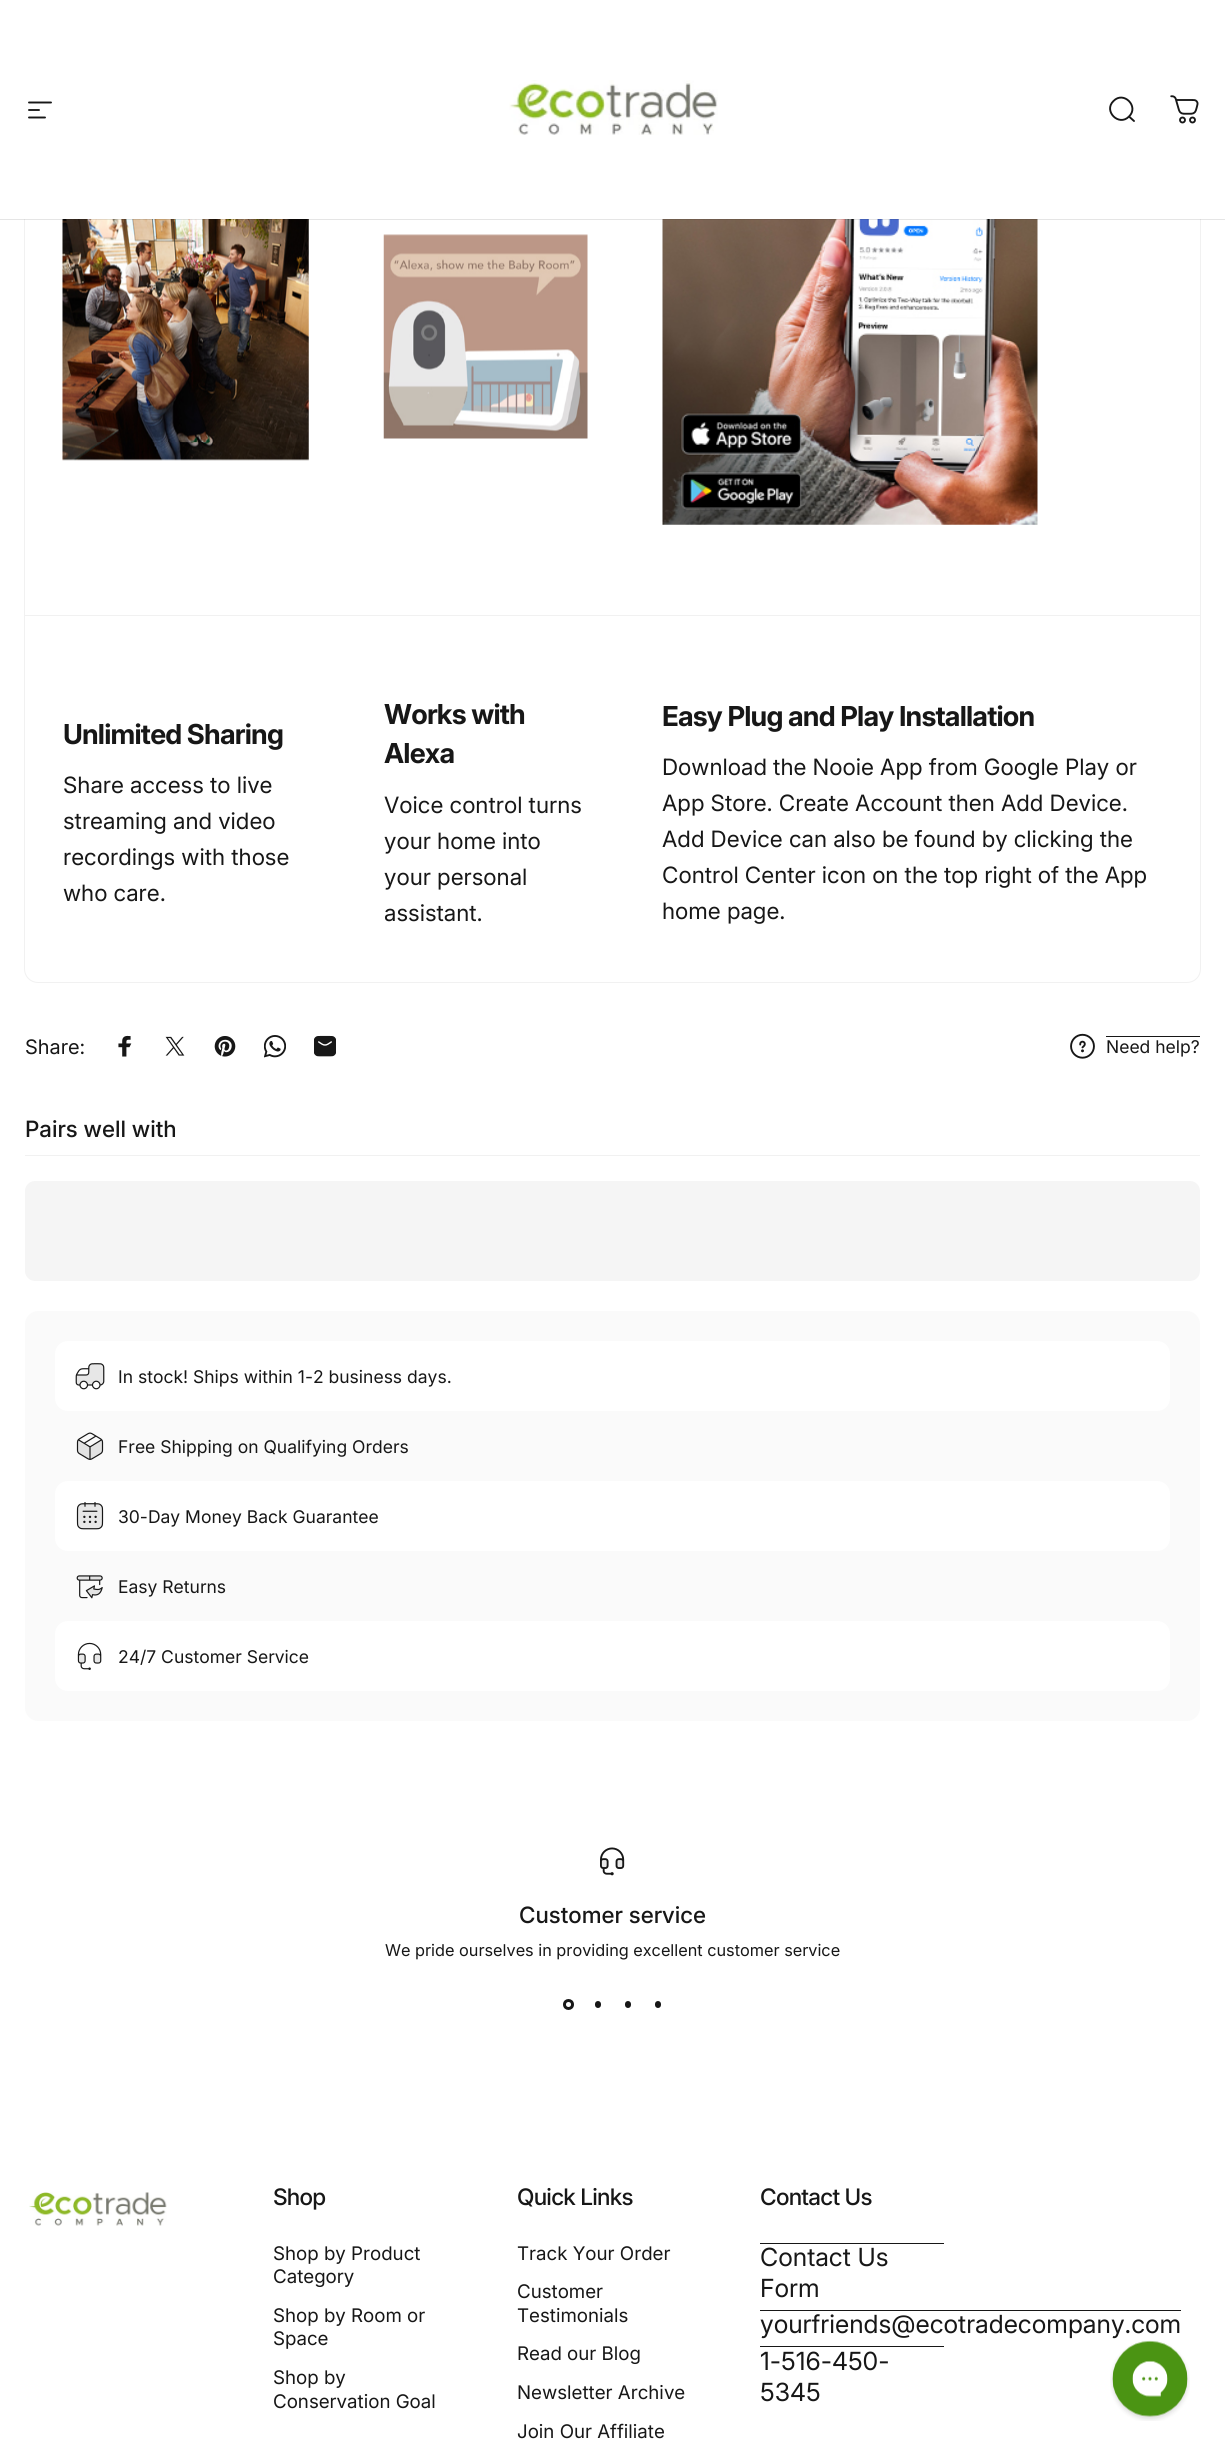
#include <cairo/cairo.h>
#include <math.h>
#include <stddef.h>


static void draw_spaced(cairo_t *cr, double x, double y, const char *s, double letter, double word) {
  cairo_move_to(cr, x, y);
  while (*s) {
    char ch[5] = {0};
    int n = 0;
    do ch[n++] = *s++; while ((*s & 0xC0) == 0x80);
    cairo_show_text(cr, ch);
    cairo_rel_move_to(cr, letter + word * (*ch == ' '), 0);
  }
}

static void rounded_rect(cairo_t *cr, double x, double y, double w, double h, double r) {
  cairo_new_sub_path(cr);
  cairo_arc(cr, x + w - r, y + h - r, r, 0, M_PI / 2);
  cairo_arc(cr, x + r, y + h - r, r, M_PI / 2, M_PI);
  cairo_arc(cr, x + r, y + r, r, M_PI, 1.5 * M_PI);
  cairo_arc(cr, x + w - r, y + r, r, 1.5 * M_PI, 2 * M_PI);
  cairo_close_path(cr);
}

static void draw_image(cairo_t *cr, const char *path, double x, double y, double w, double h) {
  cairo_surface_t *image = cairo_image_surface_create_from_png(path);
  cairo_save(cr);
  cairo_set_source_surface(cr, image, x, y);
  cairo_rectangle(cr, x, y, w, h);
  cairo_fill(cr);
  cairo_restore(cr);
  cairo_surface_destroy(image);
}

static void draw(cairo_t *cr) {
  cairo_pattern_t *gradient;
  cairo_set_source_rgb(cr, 1, 1, 1);
  cairo_paint(cr);
  rounded_rect(cr, 24.5, 58.5, 1176, 924, 13.5);
  cairo_set_source_rgb(cr, 241 / 255.0, 241 / 255.0, 241 / 255.0);
  cairo_set_line_width(cr, 1);
  cairo_stroke(cr);
  cairo_set_source_rgb(cr, 1, 1, 1);
  cairo_rectangle(cr, 24, 58, 1177, 161);
  cairo_fill(cr);
  cairo_new_path(cr);
  cairo_move_to(cr, 29, 102.5);
  cairo_line_to(cr, 51, 102.5);
  cairo_move_to(cr, 29, 110);
  cairo_line_to(cr, 39, 110);
  cairo_move_to(cr, 29, 117.5);
  cairo_line_to(cr, 45, 117.5);
  cairo_set_source_rgb(cr, 23 / 255.0, 23 / 255.0, 23 / 255.0);
  cairo_set_line_width(cr, 1.9);
  cairo_set_line_cap(cr, CAIRO_LINE_CAP_ROUND);
  cairo_stroke(cr);
  draw_image(cr, "images/1.png", 509, 80, 209, 55);
  cairo_new_path(cr);
  cairo_move_to(cr, 1134, 121);
  cairo_line_to(cr, 1129, 116.5);
  cairo_move_to(cr, 1129, 116.5);
  cairo_curve_to(cr, 1139.5, 106.5, 1123.5, 90.5, 1113.5, 101);
  cairo_curve_to(cr, 1103, 111, 1119, 127, 1129, 116.5);
  cairo_close_path(cr);
  cairo_stroke(cr);
  draw_image(cr, "images/2.png", 1170, 95, 29, 29);
  draw_image(cr, "images/3.png", 62, 219, 247, 242);
  draw_image(cr, "images/5.png", 662, 219, 376, 306);
  cairo_set_source_rgba(cr, 23 / 255.0, 23 / 255.0, 23 / 255.0, 0.11);
  cairo_rectangle(cr, 0, 219, 1225, 1);
  cairo_fill(cr);
  draw_image(cr, "images/4.png", 383, 234, 205, 205);
  cairo_set_source_rgb(cr, 241 / 255.0, 241 / 255.0, 241 / 255.0);
  cairo_rectangle(cr, 25, 615, 1175, 1);
  cairo_fill(cr);
  draw_image(cr, "images/6.png", 118, 1035, 14, 22);
  draw_image(cr, "images/7.png", 165, 1036, 20, 20);
  draw_image(cr, "images/8.png", 214, 1036, 22, 21);
  draw_image(cr, "images/9.png", 264, 1035, 22, 23);
  draw_image(cr, "images/10.png", 314, 1035, 22, 22);
  draw_image(cr, "images/11.png", 1070, 1033, 25, 26);
  cairo_set_source_rgb(cr, 23 / 255.0, 23 / 255.0, 23 / 255.0);
  cairo_rectangle(cr, 1106, 1036, 94, 1);
  cairo_fill(cr);
  cairo_set_source_rgb(cr, 241 / 255.0, 241 / 255.0, 241 / 255.0);
  cairo_rectangle(cr, 25, 1155, 1175, 1);
  cairo_fill(cr);
  gradient = cairo_pattern_create_linear(87, 828, 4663, 1635);
  cairo_pattern_add_color_stop_rgba(gradient, 0.4, 245 / 255.0, 245 / 255.0, 245 / 255.0, 1);
  cairo_pattern_add_color_stop_rgba(gradient, 0.63, 229 / 255.0, 229 / 255.0, 229 / 255.0, 1);
  cairo_pattern_add_color_stop_rgba(gradient, 0.79, 245 / 255.0, 245 / 255.0, 245 / 255.0, 1);
  cairo_set_source(cr, gradient);
  cairo_pattern_destroy(gradient);
  rounded_rect(cr, 25, 1181, 1175, 100, 10);
  cairo_fill(cr);
  cairo_set_source_rgb(cr, 250 / 255.0, 250 / 255.0, 250 / 255.0);
  cairo_new_path(cr);
  cairo_move_to(cr, 38, 1311);
  cairo_line_to(cr, 1187, 1311);
  cairo_curve_to(cr, 1194, 1311, 1200, 1317, 1200, 1324);
  cairo_line_to(cr, 1200, 1411);
  cairo_line_to(cr, 25, 1411);
  cairo_line_to(cr, 25, 1324);
  cairo_curve_to(cr, 25, 1317, 31, 1311, 38, 1311);
  cairo_close_path(cr);
  cairo_fill(cr);
  cairo_set_source_rgb(cr, 1, 1, 1);
  rounded_rect(cr, 55, 1341, 1115, 70, 13);
  cairo_fill(cr);
  draw_image(cr, "images/12.png", 75, 1363, 30, 27);
  cairo_set_source_rgb(cr, 250 / 255.0, 250 / 255.0, 250 / 255.0);
  cairo_rectangle(cr, 25, 1411, 1175, 210);
  cairo_fill(cr);
  draw_image(cr, "images/13.png", 76, 1432, 28, 28);
  cairo_set_source_rgb(cr, 1, 1, 1);
  rounded_rect(cr, 55, 1481, 1115, 70, 13);
  cairo_fill(cr);
  draw_image(cr, "images/14.png", 76, 1502, 28, 28);
  draw_image(cr, "images/15.png", 76, 1575, 27, 24);
  cairo_set_source_rgb(cr, 250 / 255.0, 250 / 255.0, 250 / 255.0);
  cairo_new_path(cr);
  cairo_move_to(cr, 25, 1621);
  cairo_line_to(cr, 1200, 1621);
  cairo_line_to(cr, 1200, 1708);
  cairo_curve_to(cr, 1200, 1715, 1194, 1721, 1187, 1721);
  cairo_line_to(cr, 38, 1721);
  cairo_curve_to(cr, 31, 1721, 25, 1715, 25, 1708);
  cairo_close_path(cr);
  cairo_fill(cr);
  cairo_set_source_rgb(cr, 1, 1, 1);
  rounded_rect(cr, 55, 1621, 1115, 70, 13);
  cairo_fill(cr);
  draw_image(cr, "images/16.png", 77, 1642, 25, 28);
  draw_image(cr, "images/17.png", 600, 1847, 25, 29);
  cairo_arc(cr, 568.5, 2004.5, 4, 0, 2 * M_PI);
  cairo_set_source_rgb(cr, 23 / 255.0, 23 / 255.0, 23 / 255.0);
  cairo_set_line_width(cr, 3);
  cairo_set_line_cap(cr, CAIRO_LINE_CAP_BUTT);
  cairo_stroke(cr);
  rounded_rect(cr, 595, 2001, 6, 7, 3);
  cairo_fill(cr);
  rounded_rect(cr, 625, 2001, 6, 7, 3);
  cairo_fill(cr);
  rounded_rect(cr, 655, 2001, 6, 7, 3);
  cairo_fill(cr);
  draw_image(cr, "images/18.png", 29, 2192, 138, 34);
  cairo_rectangle(cr, 760, 2243, 184, 1);
  cairo_fill(cr);
  cairo_rectangle(cr, 760, 2310, 421, 1);
  cairo_fill(cr);
  cairo_rectangle(cr, 760, 2346, 184, 1);
  cairo_fill(cr);
  draw_image(cr, "images/19.png", 1110, 2340, 80, 81);
  cairo_select_font_face(cr, "Inter", CAIRO_FONT_SLANT_NORMAL, CAIRO_FONT_WEIGHT_BOLD);
  cairo_set_font_size(cr, 27.5);
  draw_spaced(cr, 63, 744, "Unlimited Sharing", -0.8, 0);
  cairo_select_font_face(cr, "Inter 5", CAIRO_FONT_SLANT_NORMAL, CAIRO_FONT_WEIGHT_NORMAL);
  cairo_set_font_size(cr, 22.5);
  cairo_move_to(cr, 63, 793);
  cairo_show_text(cr, "Share access to live");
  cairo_move_to(cr, 63, 829);
  cairo_show_text(cr, "streaming and video");
  cairo_move_to(cr, 63, 865);
  cairo_show_text(cr, "recordings with those");
  cairo_move_to(cr, 63, 901);
  cairo_show_text(cr, "who care.");
  cairo_select_font_face(cr, "Inter", CAIRO_FONT_SLANT_NORMAL, CAIRO_FONT_WEIGHT_BOLD);
  cairo_set_font_size(cr, 27.5);
  draw_spaced(cr, 384, 724, "Works with", -0.8, 0);
  draw_spaced(cr, 384, 763, "Alexa", -0.8, 0);
  cairo_select_font_face(cr, "Inter 5", CAIRO_FONT_SLANT_NORMAL, CAIRO_FONT_WEIGHT_NORMAL);
  cairo_set_font_size(cr, 22.5);
  cairo_move_to(cr, 384, 813);
  cairo_show_text(cr, "Voice control turns");
  cairo_move_to(cr, 384, 849);
  cairo_show_text(cr, "your home into");
  cairo_move_to(cr, 384, 885);
  cairo_show_text(cr, "your personal");
  cairo_move_to(cr, 384, 921);
  cairo_show_text(cr, "assistant.");
  cairo_select_font_face(cr, "Inter", CAIRO_FONT_SLANT_NORMAL, CAIRO_FONT_WEIGHT_BOLD);
  cairo_set_font_size(cr, 27.5);
  draw_spaced(cr, 662, 726, "Easy Plug and Play Installation", -0.8, 0);
  cairo_select_font_face(cr, "Inter 5", CAIRO_FONT_SLANT_NORMAL, CAIRO_FONT_WEIGHT_NORMAL);
  cairo_set_font_size(cr, 22.5);
  cairo_move_to(cr, 662, 775);
  cairo_show_text(cr, "Download the Nooie App from Google Play or");
  cairo_move_to(cr, 662, 811);
  cairo_show_text(cr, "App Store. Create Account then Add Device.");
  cairo_move_to(cr, 662, 847);
  cairo_show_text(cr, "Add Device can also be found by clicking the");
  cairo_move_to(cr, 662, 883);
  cairo_show_text(cr, "Control Center icon on the top right of the App");
  cairo_move_to(cr, 662, 919);
  cairo_show_text(cr, "home page.");
  cairo_select_font_face(cr, "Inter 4", CAIRO_FONT_SLANT_NORMAL, CAIRO_FONT_WEIGHT_NORMAL);
  cairo_set_font_size(cr, 20);
  cairo_move_to(cr, 25, 1054);
  cairo_show_text(cr, "Share:");
  cairo_select_font_face(cr, "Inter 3", CAIRO_FONT_SLANT_NORMAL, CAIRO_FONT_WEIGHT_NORMAL);
  cairo_set_font_size(cr, 17.5);
  cairo_move_to(cr, 1106, 1053);
  cairo_show_text(cr, "Need help?");
  cairo_select_font_face(cr, "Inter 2 Medium", CAIRO_FONT_SLANT_NORMAL, CAIRO_FONT_WEIGHT_NORMAL);
  cairo_set_font_size(cr, 22.5);
  cairo_move_to(cr, 25, 1137);
  cairo_show_text(cr, "Pairs well with");
  cairo_select_font_face(cr, "Inter 3", CAIRO_FONT_SLANT_NORMAL, CAIRO_FONT_WEIGHT_NORMAL);
  cairo_set_font_size(cr, 17.5);
  cairo_move_to(cr, 118, 1383);
  cairo_show_text(cr, "In stock! Ships within 1-2 business days.");
  cairo_move_to(cr, 118, 1453);
  cairo_show_text(cr, "Free Shipping on Qualifying Orders");
  cairo_move_to(cr, 118, 1523);
  cairo_show_text(cr, "30-Day Money Back Guarantee");
  cairo_move_to(cr, 118, 1593);
  cairo_show_text(cr, "Easy Returns");
  cairo_move_to(cr, 118, 1663);
  cairo_show_text(cr, "24/7 Customer Service");
  cairo_select_font_face(cr, "Inter 2 Medium", CAIRO_FONT_SLANT_NORMAL, CAIRO_FONT_WEIGHT_NORMAL);
  cairo_set_font_size(cr, 22.5);
  cairo_move_to(cr, 519, 1923);
  cairo_show_text(cr, "Customer service");
  cairo_select_font_face(cr, "Inter 3", CAIRO_FONT_SLANT_NORMAL, CAIRO_FONT_WEIGHT_NORMAL);
  cairo_set_font_size(cr, 16.25);
  cairo_move_to(cr, 385, 1956);
  cairo_show_text(cr, "We pride ourselves in providing excellent customer service");
  cairo_select_font_face(cr, "Inter Medium", CAIRO_FONT_SLANT_NORMAL, CAIRO_FONT_WEIGHT_NORMAL);
  cairo_set_font_size(cr, 22.75);
  draw_spaced(cr, 273, 2205, "Shop", -0.75, 0);
  cairo_select_font_face(cr, "Inter", CAIRO_FONT_SLANT_NORMAL, CAIRO_FONT_WEIGHT_NORMAL);
  cairo_set_font_size(cr, 18.75);
  cairo_move_to(cr, 273, 2260);
  cairo_show_text(cr, "Shop by Product");
  cairo_move_to(cr, 273, 2283);
  cairo_show_text(cr, "Category");
  cairo_move_to(cr, 273, 2322);
  cairo_show_text(cr, "Shop by Room or");
  cairo_move_to(cr, 273, 2345);
  cairo_show_text(cr, "Space");
  cairo_move_to(cr, 273, 2384);
  cairo_show_text(cr, "Shop by");
  cairo_move_to(cr, 273, 2408);
  cairo_show_text(cr, "Conservation Goal");
  cairo_select_font_face(cr, "Inter Medium", CAIRO_FONT_SLANT_NORMAL, CAIRO_FONT_WEIGHT_NORMAL);
  cairo_set_font_size(cr, 22.75);
  draw_spaced(cr, 517, 2205, "Quick Links", -0.75, 0);
  cairo_select_font_face(cr, "Inter", CAIRO_FONT_SLANT_NORMAL, CAIRO_FONT_WEIGHT_NORMAL);
  cairo_set_font_size(cr, 18.75);
  cairo_move_to(cr, 517, 2260);
  cairo_show_text(cr, "Track Your Order");
  cairo_move_to(cr, 517, 2298);
  cairo_show_text(cr, "Customer");
  cairo_move_to(cr, 517, 2322);
  cairo_show_text(cr, "Testimonials");
  cairo_move_to(cr, 517, 2360);
  cairo_show_text(cr, "Read our Blog");
  cairo_move_to(cr, 517, 2399);
  cairo_show_text(cr, "Newsletter Archive");
  cairo_move_to(cr, 517, 2438);
  cairo_show_text(cr, "Join Our Affiliate");
  cairo_select_font_face(cr, "Inter Medium", CAIRO_FONT_SLANT_NORMAL, CAIRO_FONT_WEIGHT_NORMAL);
  cairo_set_font_size(cr, 22.75);
  draw_spaced(cr, 760, 2205, "Contact Us", -0.75, 0);
  cairo_select_font_face(cr, "Inter 2", CAIRO_FONT_SLANT_NORMAL, CAIRO_FONT_WEIGHT_NORMAL);
  cairo_set_font_size(cr, 25);
  cairo_move_to(cr, 760, 2266);
  cairo_show_text(cr, "Contact Us");
  cairo_move_to(cr, 760, 2297);
  cairo_show_text(cr, "Form");
  cairo_move_to(cr, 760, 2333);
  cairo_show_text(cr, "yourfriends@ecotradecompany.com");
  cairo_move_to(cr, 760, 2370);
  cairo_show_text(cr, "1-516-450-");
  cairo_move_to(cr, 760, 2401);
  cairo_show_text(cr, "5345");
}

int main(void) {
  cairo_surface_t *surface = cairo_image_surface_create(CAIRO_FORMAT_RGB24, 1225, 2450);
  cairo_t *cr = cairo_create(surface);
  cairo_font_options_t *options = cairo_font_options_create();
  cairo_font_options_set_hint_metrics(options, CAIRO_HINT_METRICS_OFF);
  cairo_font_options_set_hint_style(options, CAIRO_HINT_STYLE_NONE);
  cairo_set_font_options(cr, options);
  cairo_set_miter_limit(cr, 4);
  draw(cr);
  cairo_surface_write_to_png(surface, "out.png");
  cairo_font_options_destroy(options);
  cairo_destroy(cr);
  cairo_surface_destroy(surface);
  return 0;
}
